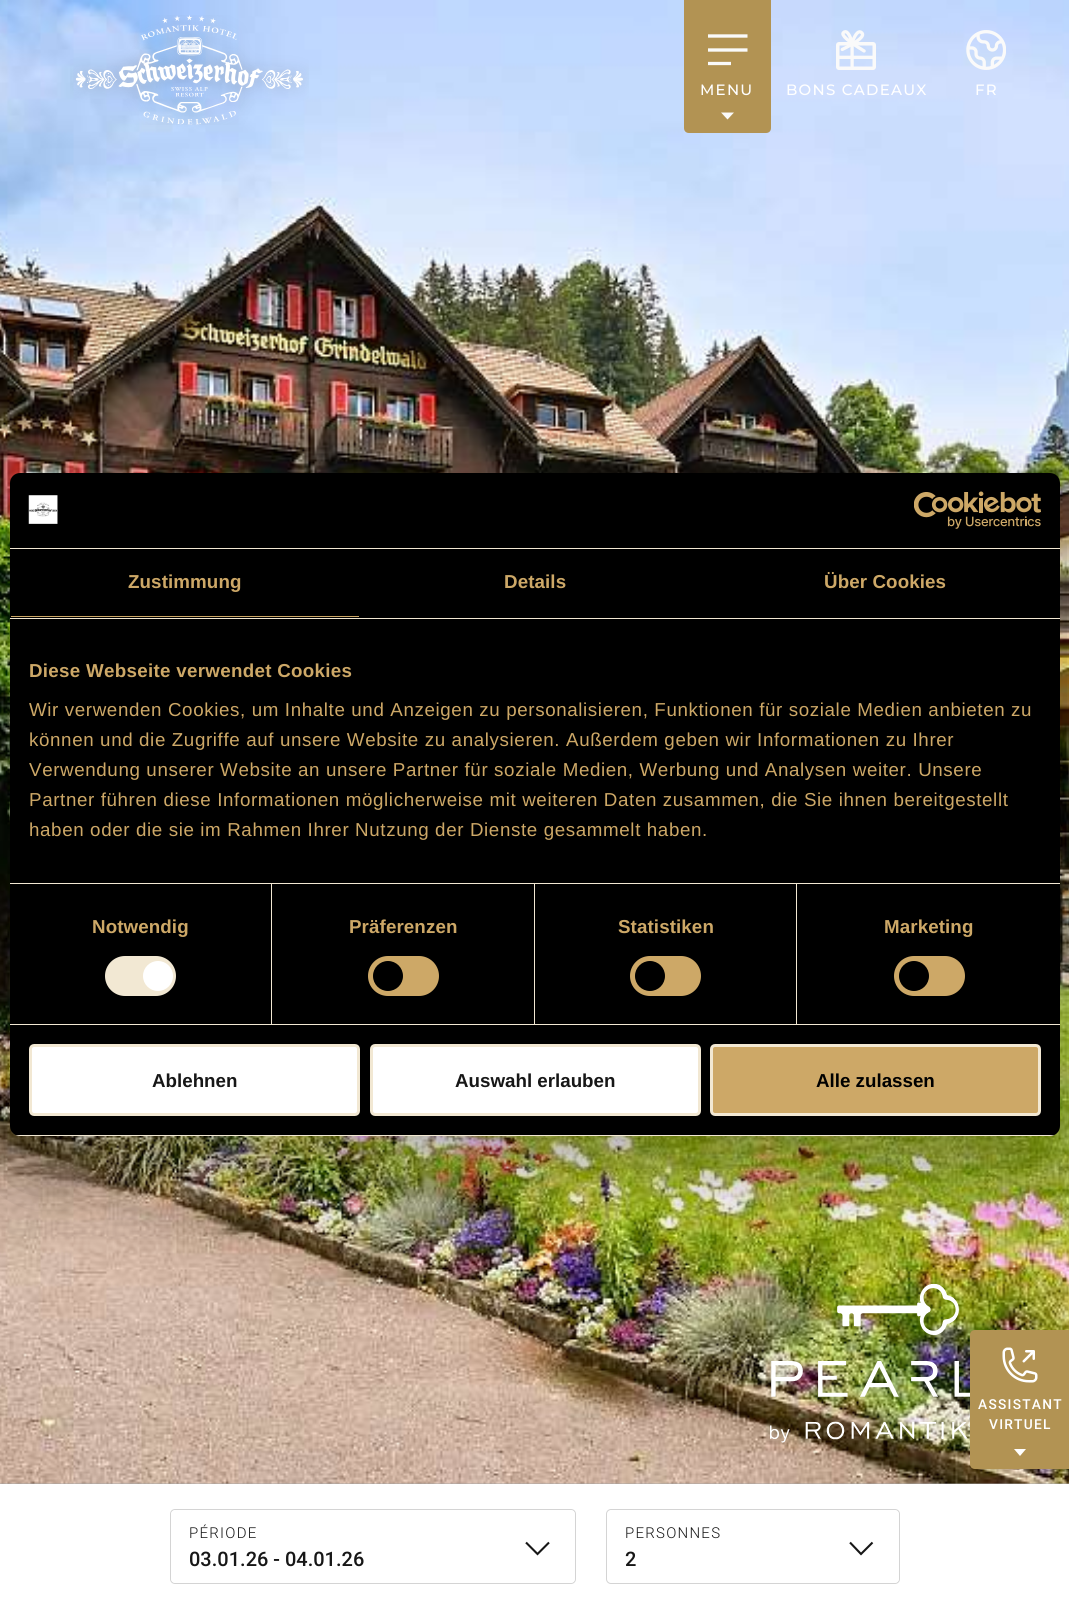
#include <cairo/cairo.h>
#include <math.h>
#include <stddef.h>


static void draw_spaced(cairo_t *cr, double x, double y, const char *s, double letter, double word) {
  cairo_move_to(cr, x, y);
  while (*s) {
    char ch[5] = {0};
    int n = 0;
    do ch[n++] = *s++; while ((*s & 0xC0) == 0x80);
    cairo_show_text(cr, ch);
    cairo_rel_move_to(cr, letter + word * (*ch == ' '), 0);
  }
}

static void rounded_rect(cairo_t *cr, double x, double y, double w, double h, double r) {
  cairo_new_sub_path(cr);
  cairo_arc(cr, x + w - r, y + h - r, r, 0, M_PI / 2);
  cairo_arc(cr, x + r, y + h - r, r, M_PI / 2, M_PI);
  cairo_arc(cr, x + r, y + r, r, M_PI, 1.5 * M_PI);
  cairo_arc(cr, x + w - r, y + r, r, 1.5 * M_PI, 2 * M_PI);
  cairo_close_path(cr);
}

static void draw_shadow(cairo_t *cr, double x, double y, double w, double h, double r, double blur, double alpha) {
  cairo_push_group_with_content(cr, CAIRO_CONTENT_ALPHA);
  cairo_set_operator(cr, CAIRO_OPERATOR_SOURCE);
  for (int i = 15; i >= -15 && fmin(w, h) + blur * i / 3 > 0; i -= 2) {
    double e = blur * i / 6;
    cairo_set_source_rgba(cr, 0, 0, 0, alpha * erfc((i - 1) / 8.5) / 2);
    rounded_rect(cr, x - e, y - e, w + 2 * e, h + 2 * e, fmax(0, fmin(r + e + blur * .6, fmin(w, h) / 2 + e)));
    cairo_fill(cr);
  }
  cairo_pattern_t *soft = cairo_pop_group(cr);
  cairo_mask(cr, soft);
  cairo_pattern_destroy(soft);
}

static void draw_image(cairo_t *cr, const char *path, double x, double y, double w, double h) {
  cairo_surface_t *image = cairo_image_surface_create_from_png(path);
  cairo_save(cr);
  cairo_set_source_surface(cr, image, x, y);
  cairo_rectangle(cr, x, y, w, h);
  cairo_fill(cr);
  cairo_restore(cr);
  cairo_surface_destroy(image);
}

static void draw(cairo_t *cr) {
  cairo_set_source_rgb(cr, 1, 1, 1);
  cairo_paint(cr);
  cairo_set_source_rgb(cr, 163 / 255.0, 163 / 255.0, 163 / 255.0);
  cairo_rectangle(cr, 0, 1483, 1069, 1);
  cairo_fill(cr);
  draw_image(cr, "images/1.png", 0, 0, 1069, 1484);
  draw_image(cr, "images/2.png", 769, 1282, 201, 162);
  draw_image(cr, "images/3.png", 70, 15, 239, 110);
  cairo_set_source_rgb(cr, 178 / 255.0, 147 / 255.0, 83 / 255.0);
  cairo_new_path(cr);
  cairo_move_to(cr, 684, 0);
  cairo_line_to(cr, 771, 0);
  cairo_line_to(cr, 771, 128);
  cairo_curve_to(cr, 771, 131, 769, 133, 766, 133);
  cairo_line_to(cr, 689, 133);
  cairo_curve_to(cr, 686, 133, 684, 131, 684, 128);
  cairo_close_path(cr);
  cairo_fill(cr);
  cairo_save(cr);
  cairo_rectangle(cr, 708, 30, 40, 40);
  cairo_clip(cr);
  cairo_new_path(cr);
  cairo_move_to(cr, 707.5, 36);
  cairo_line_to(cr, 747.5, 36);
  cairo_move_to(cr, 707.5, 50);
  cairo_line_to(cr, 747.5, 50);
  cairo_move_to(cr, 707.5, 63.5);
  cairo_line_to(cr, 731, 63.5);
  cairo_set_source_rgb(cr, 250 / 255.0, 250 / 255.0, 250 / 255.0);
  cairo_set_line_width(cr, 3.3);
  cairo_set_line_join(cr, CAIRO_LINE_JOIN_ROUND);
  cairo_stroke(cr);
  cairo_restore(cr);
  cairo_set_source_rgb(cr, 250 / 255.0, 250 / 255.0, 250 / 255.0);
  cairo_set_fill_rule(cr, CAIRO_FILL_RULE_EVEN_ODD);
  cairo_new_path(cr);
  cairo_move_to(cr, 734, 112.5);
  cairo_line_to(cr, 727.5, 119.5);
  cairo_line_to(cr, 721, 112.5);
  cairo_close_path(cr);
  cairo_fill(cr);
  draw_image(cr, "images/4.png", 836, 30, 40, 40);
  draw_image(cr, "images/5.png", 966, 30, 40, 40);
  cairo_set_source_rgb(cr, 0, 0, 0);
  draw_shadow(cr, 10, 513, 1050, 663, 10, 42.5, 0.3);
  cairo_set_source_rgb(cr, 0, 0, 0);
  rounded_rect(cr, 10, 473, 1050, 663, 10);
  cairo_fill(cr);
  cairo_set_source_rgb(cr, 242 / 255.0, 232 / 255.0, 211 / 255.0);
  cairo_rectangle(cr, 10, 548, 1050, 1);
  cairo_fill(cr);
  draw_image(cr, "images/6.png", 28, 495, 30, 29);
  draw_image(cr, "images/7.png", 914, 491, 127, 38);
  cairo_rectangle(cr, 10, 618, 1050, 1);
  cairo_fill(cr);
  cairo_set_source_rgb(cr, 205 / 255.0, 168 / 255.0, 103 / 255.0);
  cairo_rectangle(cr, 11, 616, 348, 1);
  cairo_fill(cr);
  cairo_set_source_rgb(cr, 242 / 255.0, 232 / 255.0, 211 / 255.0);
  cairo_rectangle(cr, 10, 883, 1050, 1);
  cairo_fill(cr);
  cairo_rectangle(cr, 10, 1024, 1050, 1);
  cairo_fill(cr);
  cairo_rectangle(cr, 271, 884, 1, 140);
  cairo_fill(cr);
  rounded_rect(cr, 105, 956, 71, 40, 20);
  cairo_fill(cr);
  cairo_set_source_rgb(cr, 1, 1, 1);
  cairo_arc(cr, 158, 976, 15, 0, 2 * M_PI);
  cairo_fill(cr);
  cairo_set_source_rgb(cr, 242 / 255.0, 232 / 255.0, 211 / 255.0);
  cairo_rectangle(cr, 534, 884, 1, 140);
  cairo_fill(cr);
  cairo_set_source_rgb(cr, 205 / 255.0, 168 / 255.0, 103 / 255.0);
  rounded_rect(cr, 368, 956, 71, 40, 20);
  cairo_fill(cr);
  cairo_set_source_rgb(cr, 0, 0, 0);
  cairo_arc(cr, 388, 976, 15, 0, 2 * M_PI);
  cairo_fill(cr);
  cairo_set_source_rgb(cr, 242 / 255.0, 232 / 255.0, 211 / 255.0);
  cairo_rectangle(cr, 796, 884, 1, 140);
  cairo_fill(cr);
  cairo_set_source_rgb(cr, 205 / 255.0, 168 / 255.0, 103 / 255.0);
  rounded_rect(cr, 630, 956, 71, 40, 20);
  cairo_fill(cr);
  cairo_set_source_rgb(cr, 0, 0, 0);
  cairo_arc(cr, 650, 976, 15, 0, 2 * M_PI);
  cairo_fill(cr);
  cairo_set_source_rgb(cr, 205 / 255.0, 168 / 255.0, 103 / 255.0);
  rounded_rect(cr, 894, 956, 71, 40, 20);
  cairo_fill(cr);
  cairo_set_source_rgb(cr, 0, 0, 0);
  cairo_arc(cr, 914, 976, 15, 0, 2 * M_PI);
  cairo_fill(cr);
  cairo_save(cr);
  cairo_set_fill_rule(cr, CAIRO_FILL_RULE_WINDING);
  rounded_rect(cr, 10, 473, 1050, 663, 10);
  cairo_clip(cr);
  cairo_set_source_rgb(cr, 242 / 255.0, 232 / 255.0, 211 / 255.0);
  cairo_rectangle(cr, 10, 1135, 1050, 1);
  cairo_fill(cr);
  cairo_restore(cr);
  cairo_set_source_rgb(cr, 1, 1, 1);
  rounded_rect(cr, 30.5, 1045.5, 328, 69, 3.5);
  cairo_fill_preserve(cr);
  cairo_set_source_rgb(cr, 242 / 255.0, 232 / 255.0, 211 / 255.0);
  cairo_set_line_width(cr, 3);
  cairo_stroke(cr);
  cairo_set_source_rgb(cr, 1, 1, 1);
  rounded_rect(cr, 371.5, 1045.5, 328, 69, 3.5);
  cairo_fill_preserve(cr);
  cairo_set_source_rgb(cr, 242 / 255.0, 232 / 255.0, 211 / 255.0);
  cairo_stroke(cr);
  cairo_set_source_rgb(cr, 205 / 255.0, 168 / 255.0, 103 / 255.0);
  rounded_rect(cr, 711.5, 1045.5, 328, 69, 3.5);
  cairo_fill_preserve(cr);
  cairo_set_source_rgb(cr, 242 / 255.0, 232 / 255.0, 211 / 255.0);
  cairo_stroke(cr);
  cairo_set_source_rgb(cr, 178 / 255.0, 147 / 255.0, 83 / 255.0);
  cairo_new_path(cr);
  cairo_move_to(cr, 975, 1330);
  cairo_line_to(cr, 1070, 1330);
  cairo_line_to(cr, 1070, 1469);
  cairo_line_to(cr, 975, 1469);
  cairo_curve_to(cr, 972, 1469, 970, 1467, 970, 1464);
  cairo_line_to(cr, 970, 1335);
  cairo_curve_to(cr, 970, 1332, 972, 1330, 975, 1330);
  cairo_close_path(cr);
  cairo_fill(cr);
  draw_image(cr, "images/8.png", 1002, 1347, 36, 36);
  cairo_set_source_rgb(cr, 1, 1, 1);
  cairo_new_path(cr);
  cairo_move_to(cr, 1026, 1449);
  cairo_line_to(cr, 1020, 1456);
  cairo_line_to(cr, 1014, 1449);
  cairo_close_path(cr);
  cairo_fill(cr);
  rounded_rect(cr, 170.5, 1509.5, 405, 74, 4.5);
  cairo_set_source_rgb(cr, 212 / 255.0, 212 / 255.0, 212 / 255.0);
  cairo_set_line_width(cr, 1);
  cairo_stroke(cr);
  cairo_set_source_rgb(cr, 1, 1, 1);
  rounded_rect(cr, 171, 1510, 404, 73, 5);
  cairo_fill(cr);
  cairo_new_path(cr);
  cairo_move_to(cr, 549, 1542.5);
  cairo_line_to(cr, 537.5, 1554);
  cairo_line_to(cr, 526, 1542.5);
  cairo_set_source_rgb(cr, 23 / 255.0, 23 / 255.0, 23 / 255.0);
  cairo_set_line_width(cr, 2.1);
  cairo_stroke(cr);
  rounded_rect(cr, 606.5, 1509.5, 293, 74, 4.5);
  cairo_set_source_rgb(cr, 212 / 255.0, 212 / 255.0, 212 / 255.0);
  cairo_set_line_width(cr, 1);
  cairo_stroke(cr);
  cairo_set_source_rgb(cr, 1, 1, 1);
  rounded_rect(cr, 608, 1510, 291, 73, 5);
  cairo_fill(cr);
  cairo_new_path(cr);
  cairo_move_to(cr, 872.5, 1542.5);
  cairo_line_to(cr, 861, 1554);
  cairo_line_to(cr, 850, 1542.5);
  cairo_set_source_rgb(cr, 23 / 255.0, 23 / 255.0, 23 / 255.0);
  cairo_set_line_width(cr, 2.1);
  cairo_stroke(cr);
  cairo_select_font_face(cr, "Montserrat Thin", CAIRO_FONT_SLANT_NORMAL, CAIRO_FONT_WEIGHT_NORMAL);
  cairo_set_font_size(cr, 15);
  cairo_set_source_rgb(cr, 1, 1, 1);
  draw_spaced(cr, 700, 95, "MENU", 1.25, 0);
  draw_spaced(cr, 786, 95, "BONS CADEAUX", 1.25, 0);
  draw_spaced(cr, 975, 95, "FR", 1.25, 0);
  cairo_select_font_face(cr, "Liberation Sans", CAIRO_FONT_SLANT_NORMAL, CAIRO_FONT_WEIGHT_BOLD);
  cairo_set_font_size(cr, 18.75);
  cairo_set_source_rgb(cr, 205 / 255.0, 168 / 255.0, 103 / 255.0);
  draw_spaced(cr, 128, 588, "Zustimmung", 0.1, 0);
  draw_spaced(cr, 504, 588, "Details", 0.1, 0);
  draw_spaced(cr, 824, 588, "Über Cookies", 0.1, 0);
  draw_spaced(cr, 29, 677, "Diese Webseite verwendet Cookies", 0.3, 0);
  cairo_select_font_face(cr, "Liberation Sans", CAIRO_FONT_SLANT_NORMAL, CAIRO_FONT_WEIGHT_NORMAL);
  draw_spaced(cr, 29, 716, "Wir verwenden Cookies, um Inhalte und Anzeigen zu personalisieren, Funktionen für soziale Medien anbieten zu", 0.62, 0);
  draw_spaced(cr, 29, 746, "können und die Zugriffe auf unsere Website zu analysieren. Außerdem geben wir Informationen zu Ihrer", 0.62, 0);
  draw_spaced(cr, 29, 776, "Verwendung unserer Website an unsere Partner für soziale Medien, Werbung und Analysen weiter. Unsere", 0.62, 0);
  draw_spaced(cr, 29, 806, "Partner führen diese Informationen möglicherweise mit weiteren Daten zusammen, die Sie ihnen bereitgestellt", 0.62, 0);
  draw_spaced(cr, 29, 836, "haben oder die sie im Rahmen Ihrer Nutzung der Dienste gesammelt haben.", 0.62, 0);
  cairo_select_font_face(cr, "Liberation Sans", CAIRO_FONT_SLANT_NORMAL, CAIRO_FONT_WEIGHT_BOLD);
  draw_spaced(cr, 92, 933, "Notwendig", 0.1, 0);
  draw_spaced(cr, 349, 933, "Präferenzen", 0.1, 0);
  draw_spaced(cr, 618, 933, "Statistiken", 0.1, 0);
  draw_spaced(cr, 884, 933, "Marketing", 0.1, 0);
  cairo_set_source_rgb(cr, 23 / 255.0, 23 / 255.0, 23 / 255.0);
  cairo_move_to(cr, 152, 1087);
  cairo_show_text(cr, "Ablehnen");
  cairo_move_to(cr, 455, 1087);
  cairo_show_text(cr, "Auswahl erlauben");
  cairo_set_source_rgb(cr, 0, 0, 0);
  cairo_move_to(cr, 816, 1087);
  cairo_show_text(cr, "Alle zulassen");
  cairo_select_font_face(cr, "Roboto Medium", CAIRO_FONT_SLANT_NORMAL, CAIRO_FONT_WEIGHT_NORMAL);
  cairo_set_font_size(cr, 13.75);
  cairo_set_source_rgb(cr, 1, 1, 1);
  draw_spaced(cr, 978, 1409, "ASSISTANT", 1.25, 0);
  draw_spaced(cr, 989, 1429, "VIRTUEL", 1.25, 0);
  cairo_select_font_face(cr, "Roboto Light", CAIRO_FONT_SLANT_NORMAL, CAIRO_FONT_WEIGHT_NORMAL);
  cairo_set_font_size(cr, 15);
  cairo_set_source_rgb(cr, 23 / 255.0, 23 / 255.0, 23 / 255.0);
  draw_spaced(cr, 189, 1538, "PÉRIODE", 1.25, 0);
  cairo_select_font_face(cr, "Roboto Medium", CAIRO_FONT_SLANT_NORMAL, CAIRO_FONT_WEIGHT_NORMAL);
  cairo_set_font_size(cr, 20);
  cairo_move_to(cr, 189, 1566);
  cairo_show_text(cr, "03.01.26 - 04.01.26");
  cairo_select_font_face(cr, "Roboto Light", CAIRO_FONT_SLANT_NORMAL, CAIRO_FONT_WEIGHT_NORMAL);
  cairo_set_font_size(cr, 15);
  draw_spaced(cr, 625, 1538, "PERSONNES", 1.25, 0);
  cairo_select_font_face(cr, "Roboto Medium", CAIRO_FONT_SLANT_NORMAL, CAIRO_FONT_WEIGHT_NORMAL);
  cairo_set_font_size(cr, 20);
  cairo_move_to(cr, 625, 1566);
  cairo_show_text(cr, "2");
}

int main(void) {
  cairo_surface_t *surface = cairo_image_surface_create(CAIRO_FORMAT_RGB24, 1069, 1608);
  cairo_t *cr = cairo_create(surface);
  cairo_font_options_t *options = cairo_font_options_create();
  cairo_font_options_set_hint_metrics(options, CAIRO_HINT_METRICS_OFF);
  cairo_font_options_set_hint_style(options, CAIRO_HINT_STYLE_NONE);
  cairo_set_font_options(cr, options);
  cairo_set_miter_limit(cr, 4);
  draw(cr);
  cairo_surface_write_to_png(surface, "out.png");
  cairo_font_options_destroy(options);
  cairo_destroy(cr);
  cairo_surface_destroy(surface);
  return 0;
}
